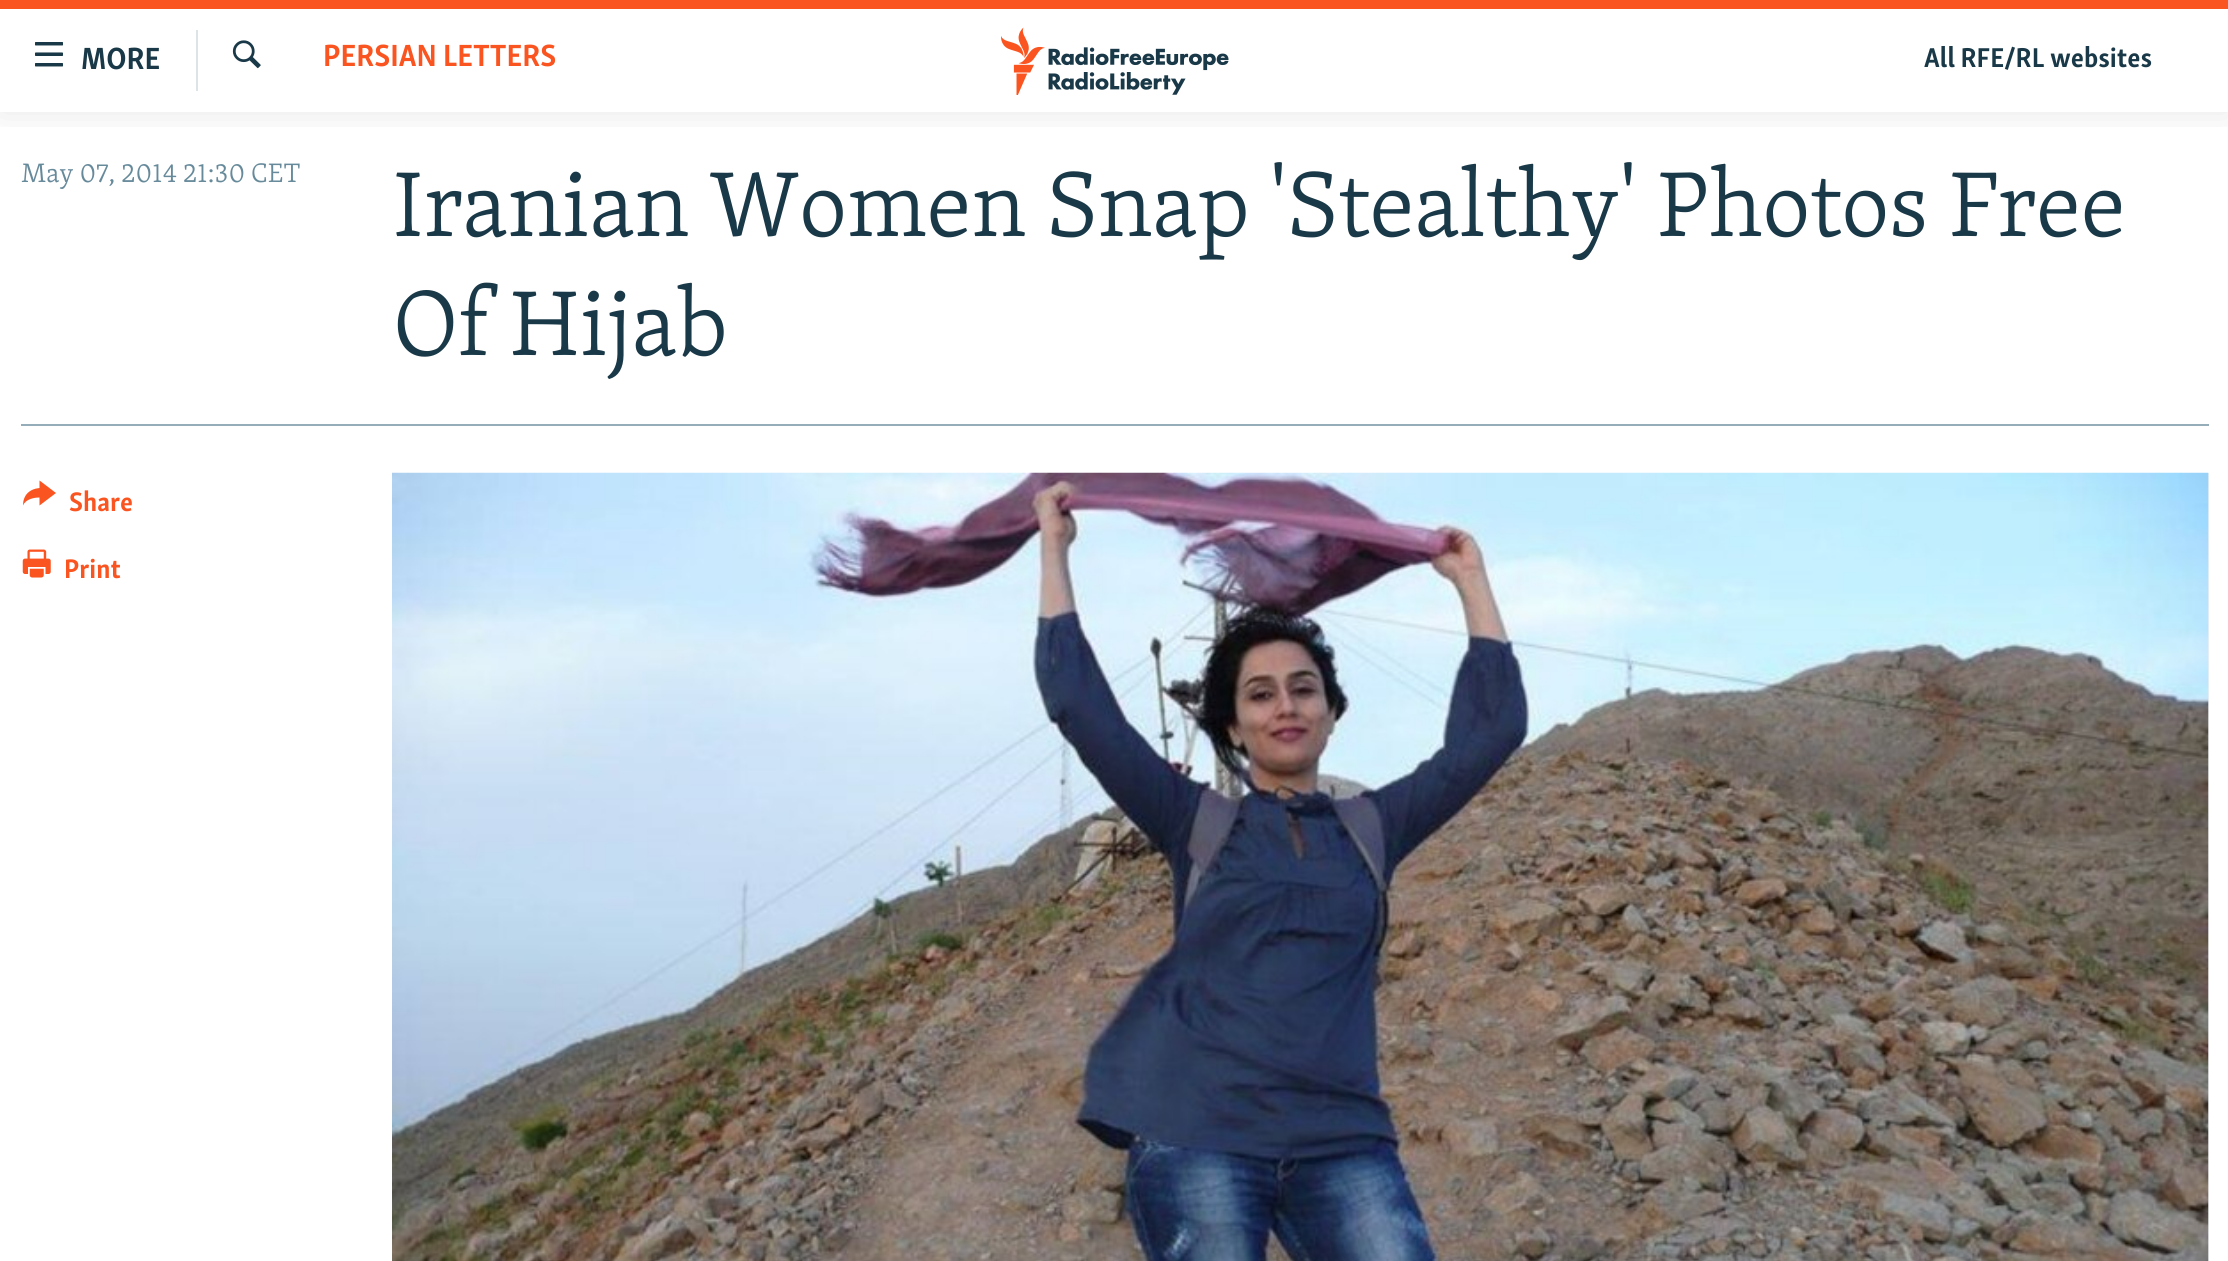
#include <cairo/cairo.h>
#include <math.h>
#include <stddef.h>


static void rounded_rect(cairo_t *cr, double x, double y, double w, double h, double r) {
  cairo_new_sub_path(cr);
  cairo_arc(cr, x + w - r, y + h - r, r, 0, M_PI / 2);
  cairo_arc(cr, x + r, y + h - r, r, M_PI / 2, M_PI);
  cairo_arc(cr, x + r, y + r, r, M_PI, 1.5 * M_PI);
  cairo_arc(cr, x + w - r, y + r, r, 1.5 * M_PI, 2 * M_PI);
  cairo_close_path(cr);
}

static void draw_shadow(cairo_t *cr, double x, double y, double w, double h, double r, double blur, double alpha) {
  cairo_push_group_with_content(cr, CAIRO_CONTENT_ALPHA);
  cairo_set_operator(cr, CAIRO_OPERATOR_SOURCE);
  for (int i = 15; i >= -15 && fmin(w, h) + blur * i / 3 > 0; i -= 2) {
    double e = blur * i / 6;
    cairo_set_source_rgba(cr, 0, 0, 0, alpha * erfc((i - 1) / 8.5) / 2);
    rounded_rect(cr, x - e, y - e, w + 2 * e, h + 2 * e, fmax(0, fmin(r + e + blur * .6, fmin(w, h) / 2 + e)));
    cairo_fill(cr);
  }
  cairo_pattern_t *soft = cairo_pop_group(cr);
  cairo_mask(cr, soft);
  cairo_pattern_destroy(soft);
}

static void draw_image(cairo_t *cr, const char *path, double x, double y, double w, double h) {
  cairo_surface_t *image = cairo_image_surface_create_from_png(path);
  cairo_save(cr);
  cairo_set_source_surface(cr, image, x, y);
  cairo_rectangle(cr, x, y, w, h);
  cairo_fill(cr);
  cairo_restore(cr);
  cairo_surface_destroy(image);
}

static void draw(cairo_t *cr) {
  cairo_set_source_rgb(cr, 1, 1, 1);
  cairo_paint(cr);
  cairo_save(cr);
  cairo_rectangle(cr, 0, 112, 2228, 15);
  cairo_clip(cr);
  cairo_set_source_rgb(cr, 0, 0, 0);
  draw_shadow(cr, 0, 0, 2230, 112, 0, 17.5, 0.1);
  cairo_restore(cr);
  cairo_set_source_rgb(cr, 250 / 255.0, 84 / 255.0, 32 / 255.0);
  cairo_rectangle(cr, 0, 0, 2228, 9);
  cairo_fill(cr);
  draw_image(cr, "images/1.png", 35, 42, 28, 25);
  cairo_set_source_rgb(cr, 220 / 255.0, 228 / 255.0, 232 / 255.0);
  cairo_rectangle(cr, 196, 30, 2, 61);
  cairo_fill(cr);
  draw_image(cr, "images/2.png", 232, 40, 29, 29);
  draw_image(cr, "images/3.png", 1001, 27, 228, 68);
  cairo_set_source_rgb(cr, 149 / 255.0, 173 / 255.0, 185 / 255.0);
  cairo_rectangle(cr, 21, 424, 2188, 2);
  cairo_fill(cr);
  cairo_set_source_rgb(cr, 250 / 255.0, 84 / 255.0, 32 / 255.0);
  cairo_new_path(cr);
  cairo_move_to(cr, 23, 505.5);
  cairo_curve_to(cr, 23, 495.5, 29, 489, 39.5, 488);
  cairo_line_to(cr, 39.5, 480.5);
  cairo_line_to(cr, 56, 493);
  cairo_line_to(cr, 39.5, 505.5);
  cairo_line_to(cr, 39.5, 497.5);
  cairo_curve_to(cr, 33, 497.5, 25.5, 499.5, 23, 505.5);
  cairo_close_path(cr);
  cairo_fill(cr);
  draw_image(cr, "images/4.png", 22, 549, 29, 29);
  cairo_set_source_rgb(cr, 237 / 255.0, 239 / 255.0, 240 / 255.0);
  cairo_rectangle(cr, 2208, 473, 1, 788);
  cairo_fill(cr);
  draw_image(cr, "images/5.png", 392, 472, 1817, 789);
  cairo_select_font_face(cr, "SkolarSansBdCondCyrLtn", CAIRO_FONT_SLANT_NORMAL, CAIRO_FONT_WEIGHT_BOLD);
  cairo_set_font_size(cr, 31.5);
  cairo_set_source_rgb(cr, 26 / 255.0, 57 / 255.0, 72 / 255.0);
  cairo_move_to(cr, 81, 69);
  cairo_show_text(cr, "MORE");
  cairo_set_source_rgb(cr, 250 / 255.0, 84 / 255.0, 32 / 255.0);
  cairo_move_to(cr, 323, 66);
  cairo_show_text(cr, "PERSIAN LETTERS");
  cairo_set_font_size(cr, 28);
  cairo_set_source_rgb(cr, 26 / 255.0, 57 / 255.0, 72 / 255.0);
  cairo_move_to(cr, 1924, 67);
  cairo_show_text(cr, "All RFE/RL websites");
  cairo_select_font_face(cr, "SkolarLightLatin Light", CAIRO_FONT_SLANT_NORMAL, CAIRO_FONT_WEIGHT_NORMAL);
  cairo_set_font_size(cr, 27.5);
  cairo_set_source_rgb(cr, 103 / 255.0, 138 / 255.0, 155 / 255.0);
  cairo_move_to(cr, 21, 182);
  cairo_show_text(cr, "May 07, 2014 21:30 CET");
  cairo_set_font_size(cr, 94.5);
  cairo_set_source_rgb(cr, 26 / 255.0, 57 / 255.0, 72 / 255.0);
  cairo_move_to(cr, 393, 236);
  cairo_show_text(cr, "Iranian Women Snap 'Stealthy' Photos Free");
  cairo_move_to(cr, 393, 355);
  cairo_show_text(cr, "Of Hijab");
  cairo_select_font_face(cr, "SkolarSansBdCondCyrLtn", CAIRO_FONT_SLANT_NORMAL, CAIRO_FONT_WEIGHT_BOLD);
  cairo_set_font_size(cr, 27.5);
  cairo_set_source_rgb(cr, 250 / 255.0, 84 / 255.0, 32 / 255.0);
  cairo_move_to(cr, 69, 511);
  cairo_show_text(cr, "Share");
  cairo_move_to(cr, 64, 578);
  cairo_show_text(cr, "Print");
}

int main(void) {
  cairo_surface_t *surface = cairo_image_surface_create(CAIRO_FORMAT_RGB24, 2228, 1261);
  cairo_t *cr = cairo_create(surface);
  cairo_font_options_t *options = cairo_font_options_create();
  cairo_font_options_set_hint_metrics(options, CAIRO_HINT_METRICS_OFF);
  cairo_font_options_set_hint_style(options, CAIRO_HINT_STYLE_NONE);
  cairo_set_font_options(cr, options);
  cairo_set_miter_limit(cr, 4);
  draw(cr);
  cairo_surface_write_to_png(surface, "out.png");
  cairo_font_options_destroy(options);
  cairo_destroy(cr);
  cairo_surface_destroy(surface);
  return 0;
}
